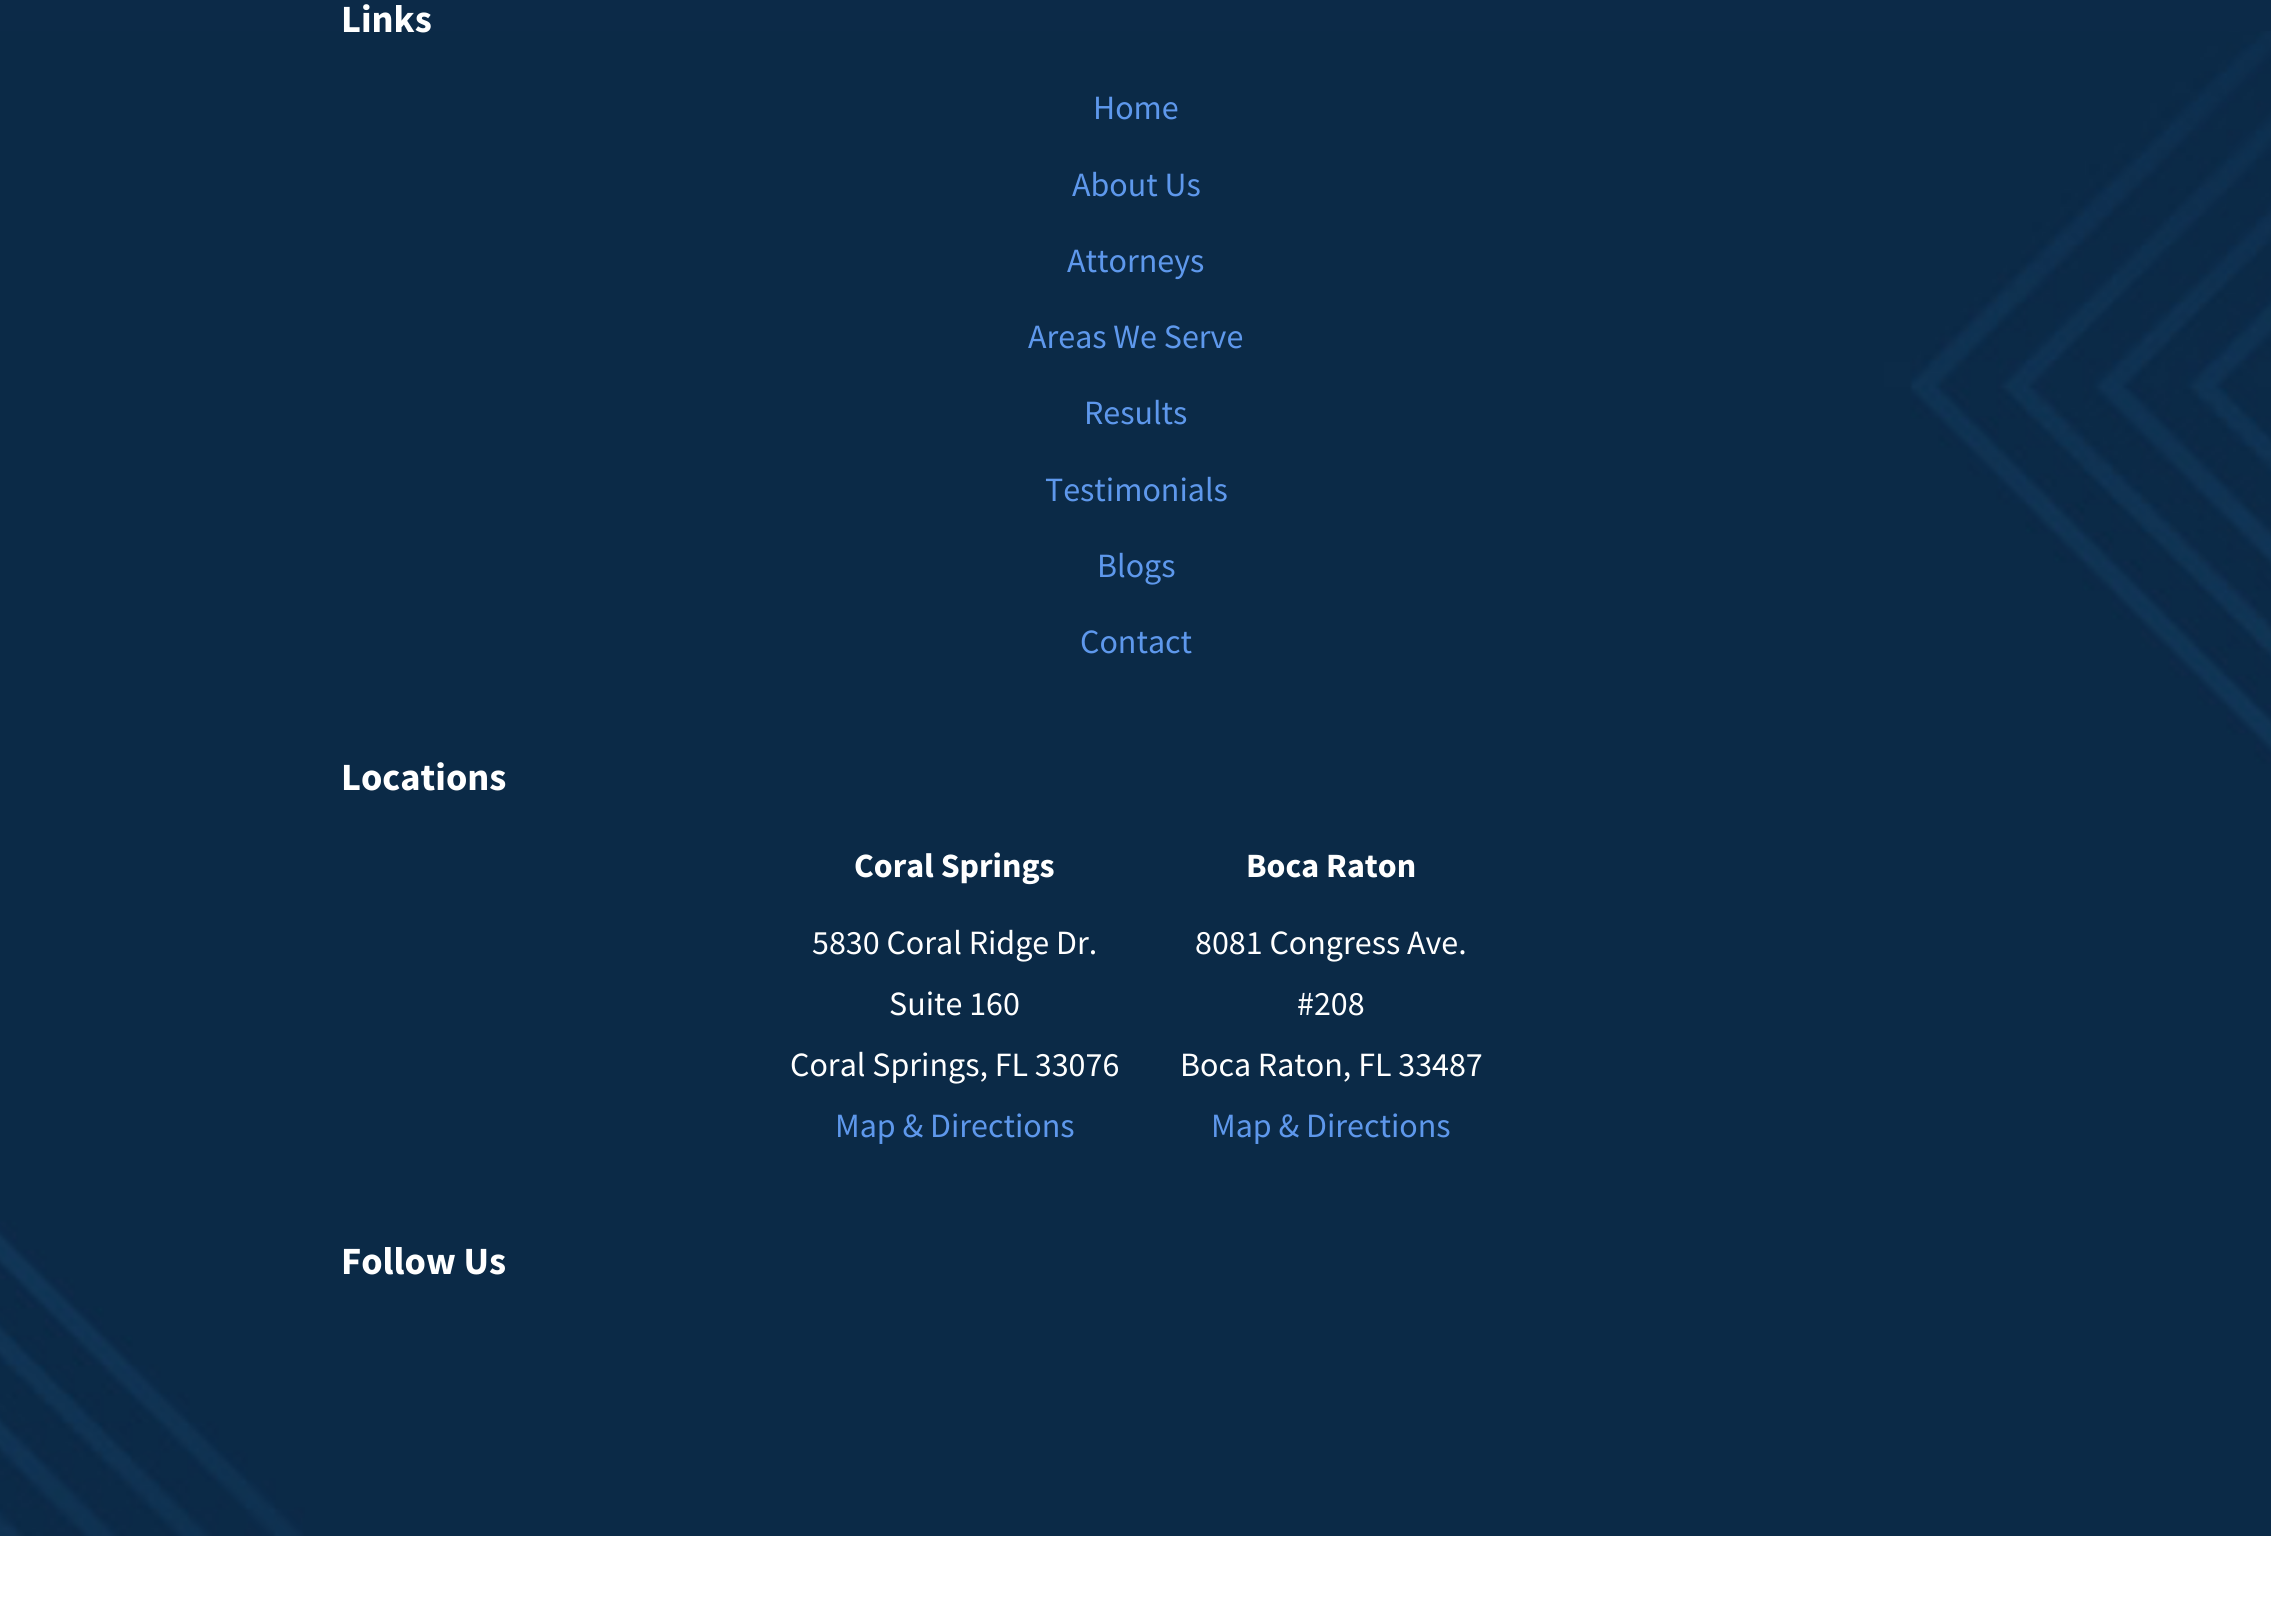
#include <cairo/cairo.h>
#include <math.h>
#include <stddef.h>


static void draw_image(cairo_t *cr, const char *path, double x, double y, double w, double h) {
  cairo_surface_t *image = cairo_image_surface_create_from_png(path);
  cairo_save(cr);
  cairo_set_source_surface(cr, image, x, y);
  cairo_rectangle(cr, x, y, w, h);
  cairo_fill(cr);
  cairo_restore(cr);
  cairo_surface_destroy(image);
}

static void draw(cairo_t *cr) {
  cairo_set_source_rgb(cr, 1, 1, 1);
  cairo_paint(cr);
  cairo_set_source_rgb(cr, 12 / 255.0, 42 / 255.0, 72 / 255.0);
  cairo_rectangle(cr, 0, 0, 2271, 31);
  cairo_fill(cr);
  draw_image(cr, "images/1.png", 0, 31, 2271, 1505);
  cairo_select_font_face(cr, "Source Sans Pro", CAIRO_FONT_SLANT_NORMAL, CAIRO_FONT_WEIGHT_BOLD);
  cairo_set_font_size(cr, 38.5);
  cairo_set_source_rgb(cr, 1, 1, 1);
  cairo_move_to(cr, 341, 32);
  cairo_show_text(cr, "Links");
  cairo_select_font_face(cr, "Source Sans Pro", CAIRO_FONT_SLANT_NORMAL, CAIRO_FONT_WEIGHT_NORMAL);
  cairo_set_font_size(cr, 34);
  cairo_set_source_rgb(cr, 94 / 255.0, 152 / 255.0, 236 / 255.0);
  cairo_move_to(cr, 1093, 119);
  cairo_show_text(cr, "Home");
  cairo_move_to(cr, 1072, 196);
  cairo_show_text(cr, "About Us");
  cairo_move_to(cr, 1067, 272);
  cairo_show_text(cr, "Attorneys");
  cairo_move_to(cr, 1028, 348);
  cairo_show_text(cr, "Areas We Serve");
  cairo_move_to(cr, 1084, 424);
  cairo_show_text(cr, "Results");
  cairo_move_to(cr, 1045, 501);
  cairo_show_text(cr, "Testimonials");
  cairo_move_to(cr, 1097, 577);
  cairo_show_text(cr, "Blogs");
  cairo_move_to(cr, 1080, 653);
  cairo_show_text(cr, "Contact");
  cairo_select_font_face(cr, "Source Sans Pro", CAIRO_FONT_SLANT_NORMAL, CAIRO_FONT_WEIGHT_BOLD);
  cairo_set_font_size(cr, 38.5);
  cairo_set_source_rgb(cr, 1, 1, 1);
  cairo_move_to(cr, 341, 790);
  cairo_show_text(cr, "Locations");
  cairo_set_font_size(cr, 34);
  cairo_move_to(cr, 854, 877);
  cairo_show_text(cr, "Coral Springs");
  cairo_select_font_face(cr, "Source Sans Pro", CAIRO_FONT_SLANT_NORMAL, CAIRO_FONT_WEIGHT_NORMAL);
  cairo_move_to(cr, 812, 954);
  cairo_show_text(cr, "5830 Coral Ridge Dr.");
  cairo_move_to(cr, 889, 1015);
  cairo_show_text(cr, "Suite 160");
  cairo_move_to(cr, 790, 1076);
  cairo_show_text(cr, "Coral Springs, FL 33076");
  cairo_set_source_rgb(cr, 94 / 255.0, 152 / 255.0, 236 / 255.0);
  cairo_move_to(cr, 835, 1137);
  cairo_show_text(cr, "Map & Directions");
  cairo_select_font_face(cr, "Source Sans Pro", CAIRO_FONT_SLANT_NORMAL, CAIRO_FONT_WEIGHT_BOLD);
  cairo_set_source_rgb(cr, 1, 1, 1);
  cairo_move_to(cr, 1246, 877);
  cairo_show_text(cr, "Boca Raton");
  cairo_select_font_face(cr, "Source Sans Pro", CAIRO_FONT_SLANT_NORMAL, CAIRO_FONT_WEIGHT_NORMAL);
  cairo_move_to(cr, 1195, 954);
  cairo_show_text(cr, "8081 Congress Ave.");
  cairo_move_to(cr, 1297, 1015);
  cairo_show_text(cr, "#208");
  cairo_move_to(cr, 1180, 1076);
  cairo_show_text(cr, "Boca Raton, FL 33487");
  cairo_set_source_rgb(cr, 94 / 255.0, 152 / 255.0, 236 / 255.0);
  cairo_move_to(cr, 1211, 1137);
  cairo_show_text(cr, "Map & Directions");
  cairo_select_font_face(cr, "Source Sans Pro", CAIRO_FONT_SLANT_NORMAL, CAIRO_FONT_WEIGHT_BOLD);
  cairo_set_font_size(cr, 38.5);
  cairo_set_source_rgb(cr, 1, 1, 1);
  cairo_move_to(cr, 341, 1274);
  cairo_show_text(cr, "Follow Us");
}

int main(void) {
  cairo_surface_t *surface = cairo_image_surface_create(CAIRO_FORMAT_RGB24, 2271, 1603);
  cairo_t *cr = cairo_create(surface);
  cairo_font_options_t *options = cairo_font_options_create();
  cairo_font_options_set_hint_metrics(options, CAIRO_HINT_METRICS_OFF);
  cairo_font_options_set_hint_style(options, CAIRO_HINT_STYLE_NONE);
  cairo_set_font_options(cr, options);
  cairo_set_miter_limit(cr, 4);
  draw(cr);
  cairo_surface_write_to_png(surface, "out.png");
  cairo_font_options_destroy(options);
  cairo_destroy(cr);
  cairo_surface_destroy(surface);
  return 0;
}
